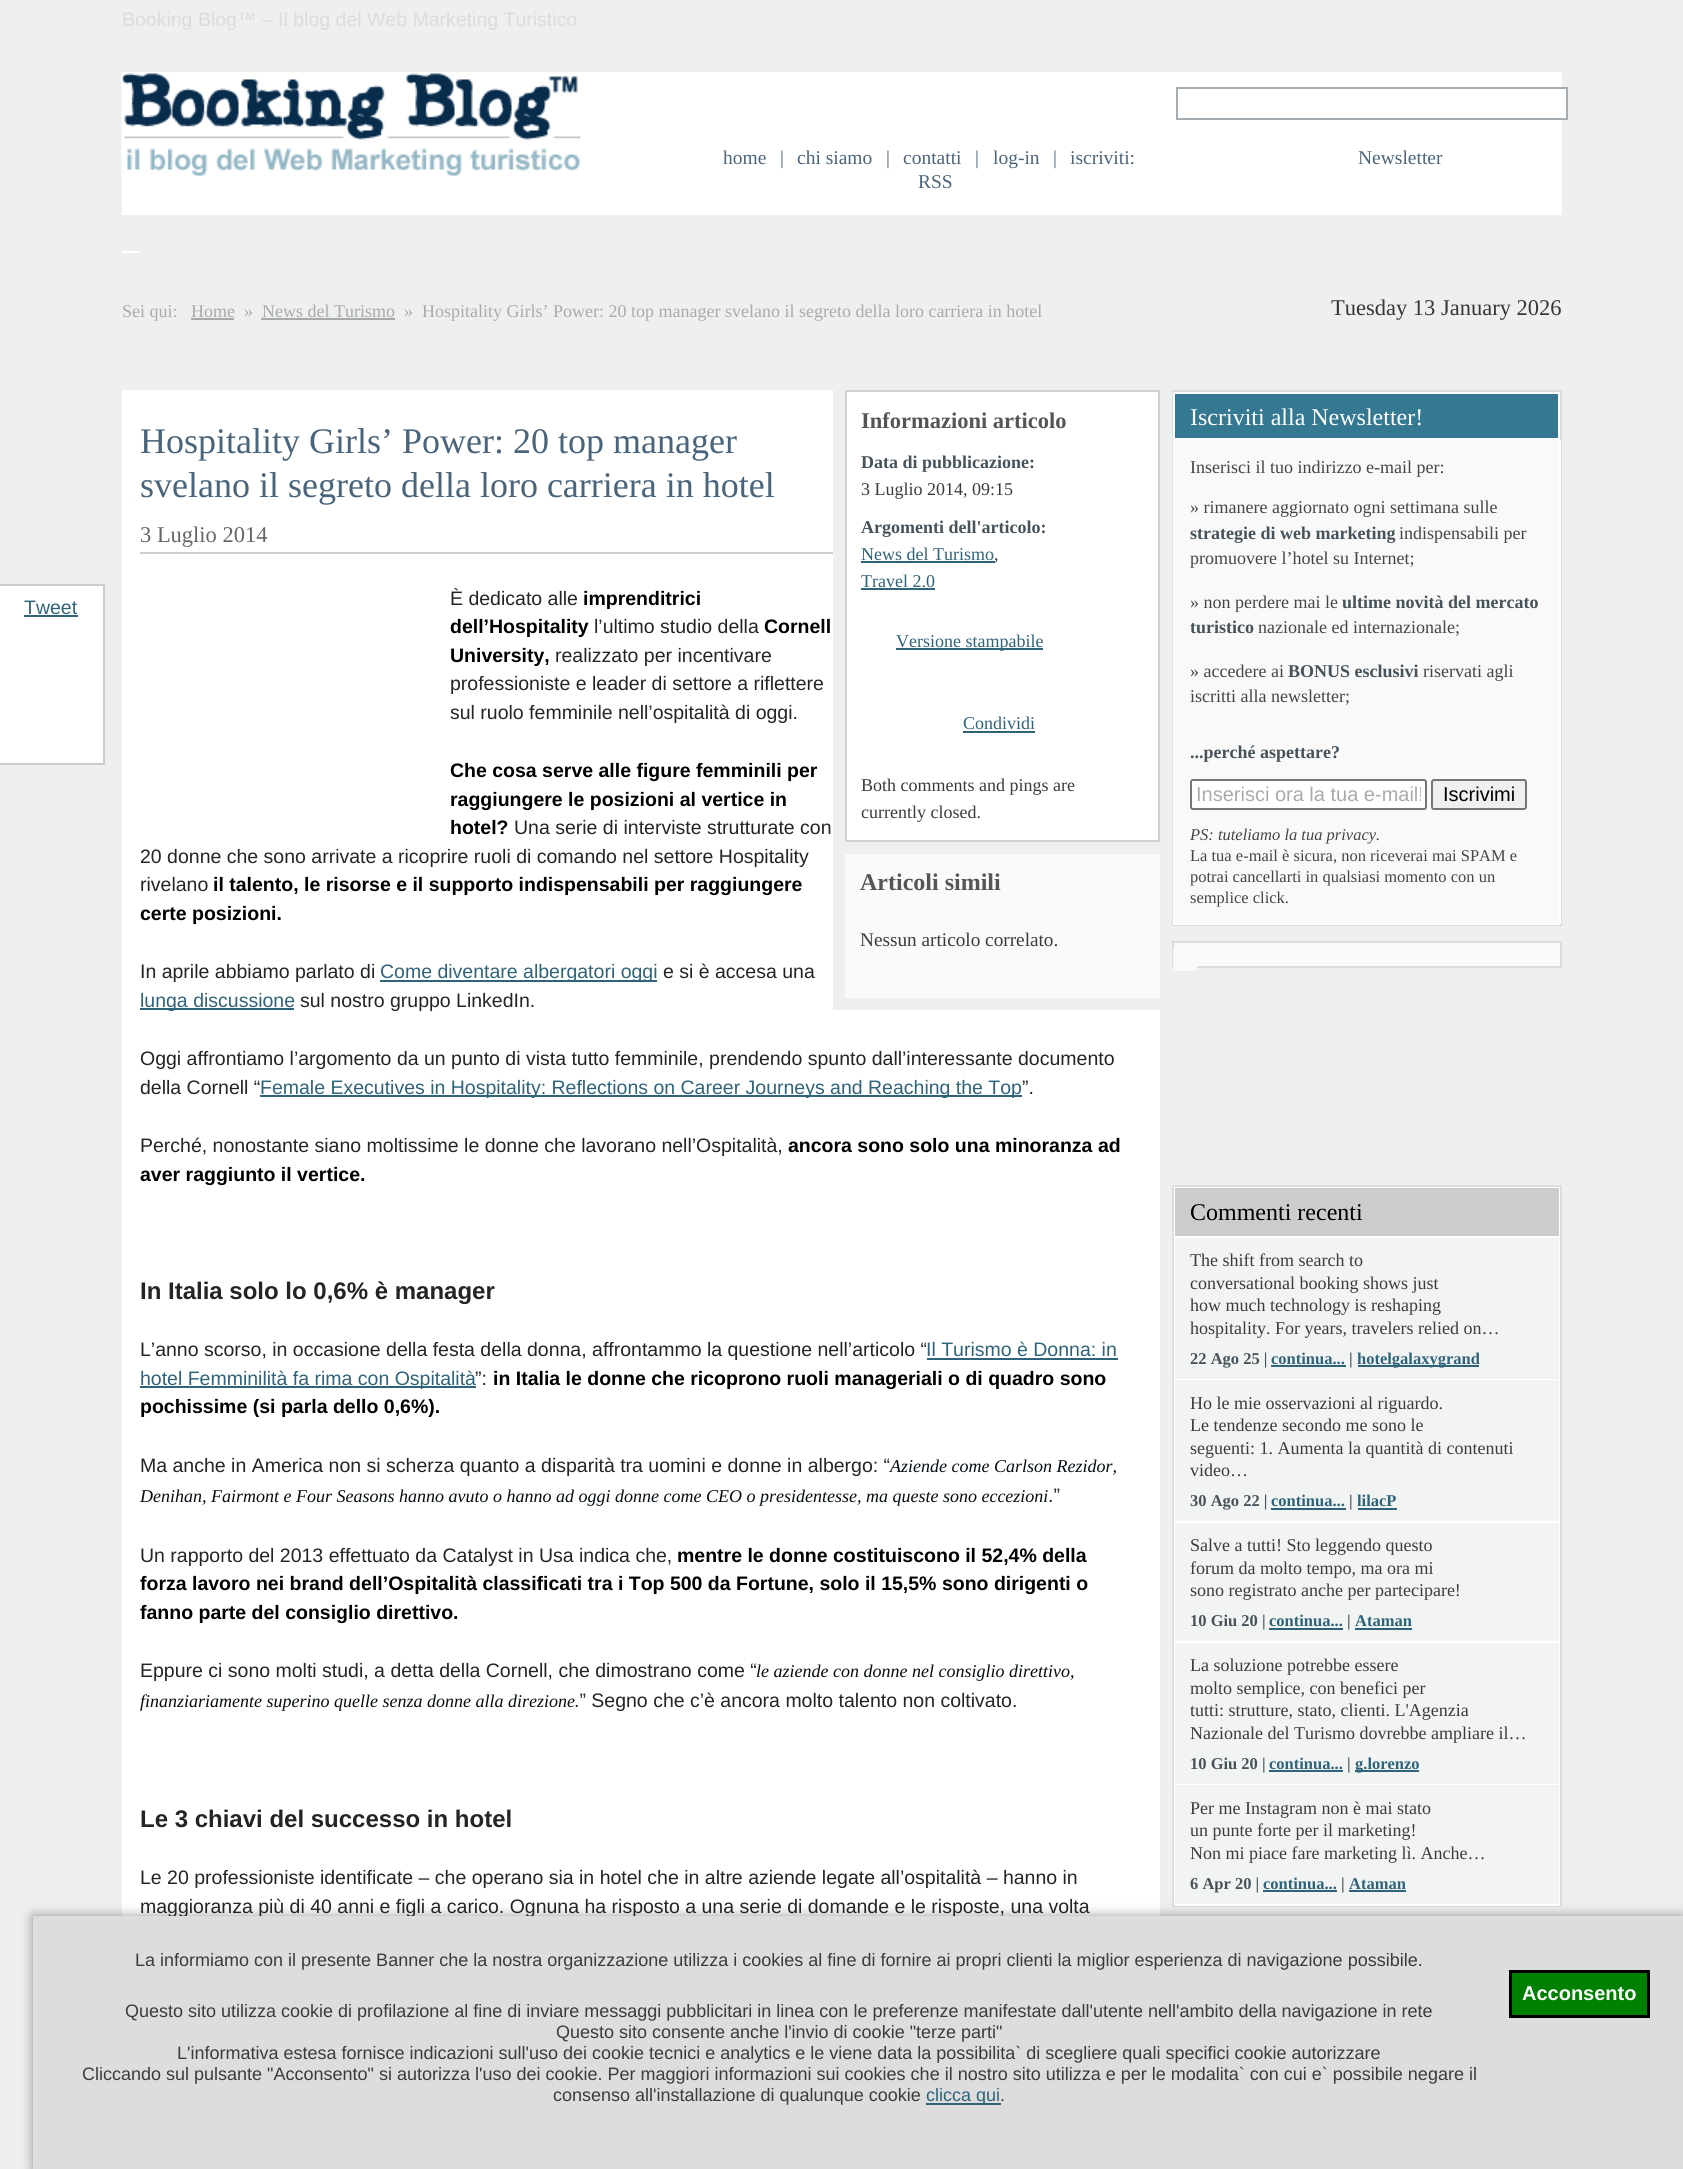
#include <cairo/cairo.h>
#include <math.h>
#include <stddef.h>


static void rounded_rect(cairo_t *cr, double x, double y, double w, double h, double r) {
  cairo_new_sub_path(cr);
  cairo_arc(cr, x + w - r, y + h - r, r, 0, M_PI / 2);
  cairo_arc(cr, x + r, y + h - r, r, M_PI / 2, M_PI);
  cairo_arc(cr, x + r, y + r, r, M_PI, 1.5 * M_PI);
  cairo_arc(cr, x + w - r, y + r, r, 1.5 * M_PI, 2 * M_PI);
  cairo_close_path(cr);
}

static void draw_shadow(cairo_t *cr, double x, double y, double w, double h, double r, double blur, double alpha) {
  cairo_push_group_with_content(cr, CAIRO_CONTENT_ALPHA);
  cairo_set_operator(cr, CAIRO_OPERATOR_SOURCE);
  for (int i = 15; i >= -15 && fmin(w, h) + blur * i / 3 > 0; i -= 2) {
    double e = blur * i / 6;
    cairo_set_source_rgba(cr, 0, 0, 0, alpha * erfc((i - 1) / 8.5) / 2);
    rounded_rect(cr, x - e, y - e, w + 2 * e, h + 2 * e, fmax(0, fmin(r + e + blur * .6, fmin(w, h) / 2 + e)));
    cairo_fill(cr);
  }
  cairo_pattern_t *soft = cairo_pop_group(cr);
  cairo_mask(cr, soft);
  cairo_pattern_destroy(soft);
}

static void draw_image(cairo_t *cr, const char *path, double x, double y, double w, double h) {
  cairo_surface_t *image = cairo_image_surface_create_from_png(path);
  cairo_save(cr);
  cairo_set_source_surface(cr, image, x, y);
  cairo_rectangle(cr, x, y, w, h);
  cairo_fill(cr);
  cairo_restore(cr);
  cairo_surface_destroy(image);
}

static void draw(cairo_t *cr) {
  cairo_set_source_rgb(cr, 238 / 255.0, 240 / 255.0, 239 / 255.0);
  cairo_paint(cr);
  cairo_set_source_rgb(cr, 1, 1, 1);
  cairo_rectangle(cr, 122, 72, 1440, 143);
  cairo_fill(cr);
  draw_image(cr, "images/1.png", 121, 72, 460, 105);
  cairo_rectangle(cr, 1562, 89, 4, 29);
  cairo_fill(cr);
  cairo_rectangle(cr, 1177, 88, 390, 31);
  cairo_set_source_rgb(cr, 165 / 255.0, 172 / 255.0, 178 / 255.0);
  cairo_stroke(cr);
  cairo_set_source_rgb(cr, 1, 1, 1);
  cairo_rectangle(cr, 122, 251, 18, 2);
  cairo_fill(cr);
  cairo_set_source_rgb(cr, 165 / 255.0, 169 / 255.0, 171 / 255.0);
  cairo_rectangle(cr, 191, 318, 43, 2);
  cairo_fill(cr);
  cairo_rectangle(cr, 261, 318, 134, 2);
  cairo_fill(cr);
  cairo_set_source_rgb(cr, 1, 1, 1);
  cairo_rectangle(cr, 122, 390, 1038, 1526);
  cairo_fill(cr);
  cairo_set_source_rgb(cr, 238 / 255.0, 240 / 255.0, 239 / 255.0);
  cairo_rectangle(cr, 845, 998, 315, 12);
  cairo_fill(cr);
  cairo_rectangle(cr, 833, 390, 12, 620);
  cairo_fill(cr);
  cairo_rectangle(cr, 845, 842, 315, 12);
  cairo_fill(cr);
  cairo_rectangle(cr, 846, 391, 313, 450);
  cairo_set_source_rgb(cr, 209 / 255.0, 209 / 255.0, 209 / 255.0);
  cairo_stroke(cr);
  cairo_set_source_rgb(cr, 47 / 255.0, 99 / 255.0, 122 / 255.0);
  cairo_rectangle(cr, 861, 561, 134, 2);
  cairo_fill(cr);
  cairo_rectangle(cr, 861, 588, 74, 2);
  cairo_fill(cr);
  cairo_rectangle(cr, 896, 648, 147, 2);
  cairo_fill(cr);
  cairo_rectangle(cr, 963, 731, 72, 2);
  cairo_fill(cr);
  cairo_set_source_rgb(cr, 250 / 255.0, 250 / 255.0, 250 / 255.0);
  cairo_rectangle(cr, 845, 854, 315, 144);
  cairo_fill(cr);
  cairo_set_source_rgb(cr, 207 / 255.0, 207 / 255.0, 207 / 255.0);
  cairo_rectangle(cr, 140, 552, 693, 2);
  cairo_fill(cr);
  cairo_set_source_rgb(cr, 1, 1, 1);
  cairo_rectangle(cr, -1, 585, 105, 179);
  cairo_fill_preserve(cr);
  cairo_set_source_rgb(cr, 204 / 255.0, 204 / 255.0, 204 / 255.0);
  cairo_stroke(cr);
  cairo_set_source_rgb(cr, 47 / 255.0, 99 / 255.0, 122 / 255.0);
  cairo_rectangle(cr, 24, 615, 54, 2);
  cairo_fill(cr);
  cairo_rectangle(cr, 380, 980, 277, 2);
  cairo_fill(cr);
  cairo_rectangle(cr, 140, 1008, 154, 2);
  cairo_fill(cr);
  cairo_rectangle(cr, 260, 1095, 762, 2);
  cairo_fill(cr);
  cairo_rectangle(cr, 927, 1358, 191, 2);
  cairo_fill(cr);
  cairo_rectangle(cr, 140, 1386, 336, 2);
  cairo_fill(cr);
  cairo_set_source_rgb(cr, 249 / 255.0, 249 / 255.0, 249 / 255.0);
  cairo_rectangle(cr, 1175, 440, 384, 483);
  cairo_fill(cr);
  cairo_rectangle(cr, 1173, 391, 388, 534);
  cairo_set_source_rgb(cr, 221 / 255.0, 221 / 255.0, 221 / 255.0);
  cairo_stroke(cr);
  cairo_set_source_rgb(cr, 52 / 255.0, 120 / 255.0, 146 / 255.0);
  cairo_rectangle(cr, 1174, 393, 385, 46);
  cairo_fill_preserve(cr);
  cairo_set_source_rgb(cr, 1, 1, 1);
  cairo_stroke(cr);
  cairo_rectangle(cr, 1559, 440, 2, 484);
  cairo_fill(cr);
  cairo_rectangle(cr, 1173, 923, 387, 2);
  cairo_fill(cr);
  cairo_rectangle(cr, 1173, 440, 2, 484);
  cairo_fill(cr);
  rounded_rect(cr, 1191, 780, 235, 29, 2);
  cairo_fill_preserve(cr);
  cairo_set_source_rgb(cr, 118 / 255.0, 118 / 255.0, 118 / 255.0);
  cairo_stroke(cr);
  cairo_set_source_rgb(cr, 239 / 255.0, 239 / 255.0, 239 / 255.0);
  rounded_rect(cr, 1432, 780, 94, 29, 2);
  cairo_fill_preserve(cr);
  cairo_set_source_rgb(cr, 118 / 255.0, 118 / 255.0, 118 / 255.0);
  cairo_stroke(cr);
  cairo_set_source_rgb(cr, 249 / 255.0, 249 / 255.0, 249 / 255.0);
  cairo_rectangle(cr, 1173, 942, 388, 25);
  cairo_fill_preserve(cr);
  cairo_set_source_rgb(cr, 221 / 255.0, 221 / 255.0, 221 / 255.0);
  cairo_stroke(cr);
  cairo_set_source_rgb(cr, 249 / 255.0, 249 / 255.0, 249 / 255.0);
  cairo_rectangle(cr, 1173, 950, 24, 21);
  cairo_fill(cr);
  cairo_set_source_rgb(cr, 1, 1, 1);
  cairo_rectangle(cr, 1173, 1186, 388, 720);
  cairo_fill_preserve(cr);
  cairo_set_source_rgb(cr, 221 / 255.0, 221 / 255.0, 221 / 255.0);
  cairo_stroke(cr);
  cairo_set_source_rgb(cr, 204 / 255.0, 204 / 255.0, 204 / 255.0);
  cairo_rectangle(cr, 1175, 1188, 384, 48);
  cairo_fill(cr);
  cairo_set_source_rgb(cr, 242 / 255.0, 244 / 255.0, 243 / 255.0);
  cairo_rectangle(cr, 1175, 1238, 384, 141);
  cairo_fill(cr);
  cairo_set_source_rgb(cr, 47 / 255.0, 99 / 255.0, 122 / 255.0);
  cairo_rectangle(cr, 1271, 1365, 75, 2);
  cairo_fill(cr);
  cairo_rectangle(cr, 1358, 1365, 121, 2);
  cairo_fill(cr);
  cairo_set_source_rgb(cr, 242 / 255.0, 244 / 255.0, 243 / 255.0);
  cairo_rectangle(cr, 1175, 1380, 384, 141);
  cairo_fill(cr);
  cairo_set_source_rgb(cr, 47 / 255.0, 99 / 255.0, 122 / 255.0);
  cairo_rectangle(cr, 1271, 1508, 75, 2);
  cairo_fill(cr);
  cairo_rectangle(cr, 1358, 1508, 39, 2);
  cairo_fill(cr);
  cairo_set_source_rgb(cr, 242 / 255.0, 244 / 255.0, 243 / 255.0);
  cairo_rectangle(cr, 1175, 1523, 384, 118);
  cairo_fill(cr);
  cairo_set_source_rgb(cr, 47 / 255.0, 99 / 255.0, 122 / 255.0);
  cairo_rectangle(cr, 1269, 1628, 74, 2);
  cairo_fill(cr);
  cairo_rectangle(cr, 1355, 1628, 57, 2);
  cairo_fill(cr);
  cairo_set_source_rgb(cr, 242 / 255.0, 244 / 255.0, 243 / 255.0);
  cairo_rectangle(cr, 1175, 1643, 384, 141);
  cairo_fill(cr);
  cairo_set_source_rgb(cr, 47 / 255.0, 99 / 255.0, 122 / 255.0);
  cairo_rectangle(cr, 1269, 1770, 74, 2);
  cairo_fill(cr);
  cairo_rectangle(cr, 1355, 1770, 64, 2);
  cairo_fill(cr);
  cairo_set_source_rgb(cr, 242 / 255.0, 244 / 255.0, 243 / 255.0);
  cairo_rectangle(cr, 1175, 1785, 384, 119);
  cairo_fill(cr);
  cairo_set_source_rgb(cr, 1, 1, 1);
  cairo_rectangle(cr, 1175, 1905, 384, 1);
  cairo_fill(cr);
  cairo_set_source_rgb(cr, 47 / 255.0, 99 / 255.0, 122 / 255.0);
  cairo_rectangle(cr, 1263, 1890, 74, 2);
  cairo_fill(cr);
  cairo_rectangle(cr, 1349, 1890, 57, 2);
  cairo_fill(cr);
  cairo_set_source_rgb(cr, 0, 0, 0);
  draw_shadow(cr, 33, 1916, 1650, 253, 0, 6, 0.4);
  cairo_select_font_face(cr, "Liberation Sans", CAIRO_FONT_SLANT_NORMAL, CAIRO_FONT_WEIGHT_NORMAL);
  cairo_set_font_size(cr, 19.5);
  cairo_set_source_rgb(cr, 219 / 255.0, 219 / 255.0, 219 / 255.0);
  cairo_move_to(cr, 122, 26);
  cairo_show_text(cr, "Booking Blog™ – Il blog del Web Marketing Turistico");
  cairo_select_font_face(cr, "Liberation Serif", CAIRO_FONT_SLANT_NORMAL, CAIRO_FONT_WEIGHT_NORMAL);
  cairo_set_source_rgb(cr, 73 / 255.0, 100 / 255.0, 123 / 255.0);
  cairo_move_to(cr, 723, 164);
  cairo_show_text(cr, "home");
  cairo_move_to(cr, 780, 164);
  cairo_show_text(cr, "|");
  cairo_move_to(cr, 797, 164);
  cairo_show_text(cr, "chi siamo");
  cairo_move_to(cr, 886, 164);
  cairo_show_text(cr, "|");
  cairo_move_to(cr, 903, 164);
  cairo_show_text(cr, "contatti");
  cairo_move_to(cr, 975, 164);
  cairo_show_text(cr, "|");
  cairo_move_to(cr, 993, 164);
  cairo_show_text(cr, "log-in");
  cairo_move_to(cr, 1053, 164);
  cairo_show_text(cr, "|");
  cairo_move_to(cr, 1070, 164);
  cairo_show_text(cr, "iscriviti:");
  cairo_move_to(cr, 1358, 164);
  cairo_show_text(cr, "Newsletter");
  cairo_move_to(cr, 918, 188);
  cairo_show_text(cr, "RSS");
  cairo_set_font_size(cr, 18);
  cairo_set_source_rgb(cr, 170 / 255.0, 170 / 255.0, 170 / 255.0);
  cairo_move_to(cr, 122, 317);
  cairo_show_text(cr, "Sei qui:");
  cairo_move_to(cr, 191, 317);
  cairo_show_text(cr, "Home");
  cairo_move_to(cr, 244, 317);
  cairo_show_text(cr, "»");
  cairo_move_to(cr, 262, 317);
  cairo_show_text(cr, "News del Turismo");
  cairo_move_to(cr, 404, 317);
  cairo_show_text(cr, "»  Hospitality Girls’ Power: 20 top manager svelano il segreto della loro carriera in hotel");
  cairo_set_font_size(cr, 22.5);
  cairo_set_source_rgb(cr, 53 / 255.0, 53 / 255.0, 53 / 255.0);
  cairo_move_to(cr, 1331, 315);
  cairo_show_text(cr, "Tuesday 13 January 2026");
  cairo_select_font_face(cr, "Liberation Serif", CAIRO_FONT_SLANT_NORMAL, CAIRO_FONT_WEIGHT_BOLD);
  cairo_set_source_rgb(cr, 85 / 255.0, 85 / 255.0, 85 / 255.0);
  cairo_move_to(cr, 861, 428);
  cairo_show_text(cr, "Informazioni articolo");
  cairo_set_font_size(cr, 18);
  cairo_set_source_rgb(cr, 70 / 255.0, 83 / 255.0, 90 / 255.0);
  cairo_move_to(cr, 861, 468);
  cairo_show_text(cr, "Data di pubblicazione:");
  cairo_select_font_face(cr, "Liberation Serif", CAIRO_FONT_SLANT_NORMAL, CAIRO_FONT_WEIGHT_NORMAL);
  cairo_set_source_rgb(cr, 59 / 255.0, 59 / 255.0, 59 / 255.0);
  cairo_move_to(cr, 861, 495);
  cairo_show_text(cr, "3 Luglio 2014, 09:15");
  cairo_select_font_face(cr, "Liberation Serif", CAIRO_FONT_SLANT_NORMAL, CAIRO_FONT_WEIGHT_BOLD);
  cairo_set_source_rgb(cr, 70 / 255.0, 83 / 255.0, 90 / 255.0);
  cairo_move_to(cr, 861, 533);
  cairo_show_text(cr, "Argomenti dell'articolo:");
  cairo_select_font_face(cr, "Liberation Serif", CAIRO_FONT_SLANT_NORMAL, CAIRO_FONT_WEIGHT_NORMAL);
  cairo_set_source_rgb(cr, 47 / 255.0, 99 / 255.0, 122 / 255.0);
  cairo_move_to(cr, 861, 560);
  cairo_show_text(cr, "News del Turismo");
  cairo_set_source_rgb(cr, 59 / 255.0, 59 / 255.0, 59 / 255.0);
  cairo_move_to(cr, 994, 560);
  cairo_show_text(cr, ",");
  cairo_set_source_rgb(cr, 47 / 255.0, 99 / 255.0, 122 / 255.0);
  cairo_move_to(cr, 861, 587);
  cairo_show_text(cr, "Travel 2.0");
  cairo_move_to(cr, 896, 647);
  cairo_show_text(cr, "Versione stampabile");
  cairo_move_to(cr, 963, 729);
  cairo_show_text(cr, "Condividi");
  cairo_set_source_rgb(cr, 59 / 255.0, 59 / 255.0, 59 / 255.0);
  cairo_move_to(cr, 861, 791);
  cairo_show_text(cr, "Both comments and pings are");
  cairo_move_to(cr, 861, 818);
  cairo_show_text(cr, "currently closed.");
  cairo_select_font_face(cr, "Liberation Serif", CAIRO_FONT_SLANT_NORMAL, CAIRO_FONT_WEIGHT_BOLD);
  cairo_set_font_size(cr, 24);
  cairo_set_source_rgb(cr, 85 / 255.0, 85 / 255.0, 85 / 255.0);
  cairo_move_to(cr, 860, 890);
  cairo_show_text(cr, "Articoli simili");
  cairo_select_font_face(cr, "Liberation Serif", CAIRO_FONT_SLANT_NORMAL, CAIRO_FONT_WEIGHT_NORMAL);
  cairo_set_font_size(cr, 19.25);
  cairo_set_source_rgb(cr, 59 / 255.0, 59 / 255.0, 59 / 255.0);
  cairo_move_to(cr, 860, 946);
  cairo_show_text(cr, "Nessun articolo correlato.");
  cairo_set_font_size(cr, 36);
  cairo_set_source_rgb(cr, 73 / 255.0, 100 / 255.0, 123 / 255.0);
  cairo_move_to(cr, 140, 453);
  cairo_show_text(cr, "Hospitality Girls’ Power: 20 top manager");
  cairo_move_to(cr, 140, 497);
  cairo_show_text(cr, "svelano il segreto della loro carriera in hotel");
  cairo_set_font_size(cr, 22.5);
  cairo_set_source_rgb(cr, 102 / 255.0, 102 / 255.0, 102 / 255.0);
  cairo_move_to(cr, 140, 542);
  cairo_show_text(cr, "3 Luglio 2014");
  cairo_select_font_face(cr, "Liberation Sans", CAIRO_FONT_SLANT_NORMAL, CAIRO_FONT_WEIGHT_NORMAL);
  cairo_set_font_size(cr, 19.5);
  cairo_set_source_rgb(cr, 47 / 255.0, 99 / 255.0, 122 / 255.0);
  cairo_move_to(cr, 24, 614);
  cairo_show_text(cr, "Tweet");
  cairo_set_source_rgb(cr, 36 / 255.0, 36 / 255.0, 36 / 255.0);
  cairo_move_to(cr, 450, 605);
  cairo_show_text(cr, "È dedicato alle");
  cairo_select_font_face(cr, "Liberation Sans", CAIRO_FONT_SLANT_NORMAL, CAIRO_FONT_WEIGHT_BOLD);
  cairo_set_source_rgb(cr, 0, 0, 0);
  cairo_move_to(cr, 583, 605);
  cairo_show_text(cr, "imprenditrici");
  cairo_move_to(cr, 450, 633);
  cairo_show_text(cr, "dell’Hospitality");
  cairo_select_font_face(cr, "Liberation Sans", CAIRO_FONT_SLANT_NORMAL, CAIRO_FONT_WEIGHT_NORMAL);
  cairo_set_source_rgb(cr, 36 / 255.0, 36 / 255.0, 36 / 255.0);
  cairo_move_to(cr, 594, 633);
  cairo_show_text(cr, "l’ultimo studio della");
  cairo_select_font_face(cr, "Liberation Sans", CAIRO_FONT_SLANT_NORMAL, CAIRO_FONT_WEIGHT_BOLD);
  cairo_set_source_rgb(cr, 0, 0, 0);
  cairo_move_to(cr, 764, 633);
  cairo_show_text(cr, "Cornell");
  cairo_move_to(cr, 450, 662);
  cairo_show_text(cr, "University,");
  cairo_select_font_face(cr, "Liberation Sans", CAIRO_FONT_SLANT_NORMAL, CAIRO_FONT_WEIGHT_NORMAL);
  cairo_set_source_rgb(cr, 36 / 255.0, 36 / 255.0, 36 / 255.0);
  cairo_move_to(cr, 555, 662);
  cairo_show_text(cr, "realizzato per incentivare");
  cairo_move_to(cr, 450, 690);
  cairo_show_text(cr, "professioniste e leader di settore a riflettere");
  cairo_move_to(cr, 450, 719);
  cairo_show_text(cr, "sul ruolo femminile nell’ospitalità di oggi.");
  cairo_select_font_face(cr, "Liberation Sans", CAIRO_FONT_SLANT_NORMAL, CAIRO_FONT_WEIGHT_BOLD);
  cairo_set_source_rgb(cr, 0, 0, 0);
  cairo_move_to(cr, 450, 777);
  cairo_show_text(cr, "Che cosa serve alle figure femminili per");
  cairo_move_to(cr, 450, 806);
  cairo_show_text(cr, "raggiungere le posizioni al vertice in");
  cairo_move_to(cr, 450, 834);
  cairo_show_text(cr, "hotel?");
  cairo_select_font_face(cr, "Liberation Sans", CAIRO_FONT_SLANT_NORMAL, CAIRO_FONT_WEIGHT_NORMAL);
  cairo_set_source_rgb(cr, 36 / 255.0, 36 / 255.0, 36 / 255.0);
  cairo_move_to(cr, 514, 834);
  cairo_show_text(cr, "Una serie di interviste strutturate con");
  cairo_move_to(cr, 140, 863);
  cairo_show_text(cr, "20 donne che sono arrivate a ricoprire ruoli di comando nel settore Hospitality");
  cairo_move_to(cr, 140, 891);
  cairo_show_text(cr, "rivelano");
  cairo_select_font_face(cr, "Liberation Sans", CAIRO_FONT_SLANT_NORMAL, CAIRO_FONT_WEIGHT_BOLD);
  cairo_set_source_rgb(cr, 0, 0, 0);
  cairo_move_to(cr, 213, 891);
  cairo_show_text(cr, "il talento, le risorse e il supporto indispensabili per raggiungere");
  cairo_move_to(cr, 140, 920);
  cairo_show_text(cr, "certe posizioni.");
  cairo_select_font_face(cr, "Liberation Sans", CAIRO_FONT_SLANT_NORMAL, CAIRO_FONT_WEIGHT_NORMAL);
  cairo_set_source_rgb(cr, 36 / 255.0, 36 / 255.0, 36 / 255.0);
  cairo_move_to(cr, 140, 978);
  cairo_show_text(cr, "In aprile abbiamo parlato di");
  cairo_set_source_rgb(cr, 47 / 255.0, 99 / 255.0, 122 / 255.0);
  cairo_move_to(cr, 380, 978);
  cairo_show_text(cr, "Come diventare albergatori oggi");
  cairo_set_source_rgb(cr, 36 / 255.0, 36 / 255.0, 36 / 255.0);
  cairo_move_to(cr, 663, 978);
  cairo_show_text(cr, "e si è accesa una");
  cairo_set_source_rgb(cr, 47 / 255.0, 99 / 255.0, 122 / 255.0);
  cairo_move_to(cr, 140, 1007);
  cairo_show_text(cr, "lunga discussione");
  cairo_set_source_rgb(cr, 36 / 255.0, 36 / 255.0, 36 / 255.0);
  cairo_move_to(cr, 300, 1007);
  cairo_show_text(cr, "sul nostro gruppo LinkedIn.");
  cairo_move_to(cr, 140, 1065);
  cairo_show_text(cr, "Oggi affrontiamo l’argomento da un punto di vista tutto femminile, prendendo spunto dall’interessante documento");
  cairo_move_to(cr, 140, 1094);
  cairo_show_text(cr, "della Cornell “");
  cairo_set_source_rgb(cr, 47 / 255.0, 99 / 255.0, 122 / 255.0);
  cairo_move_to(cr, 260, 1094);
  cairo_show_text(cr, "Female Executives in Hospitality: Reflections on Career Journeys and Reaching the Top");
  cairo_set_source_rgb(cr, 36 / 255.0, 36 / 255.0, 36 / 255.0);
  cairo_move_to(cr, 1022, 1094);
  cairo_show_text(cr, "”.");
  cairo_move_to(cr, 140, 1152);
  cairo_show_text(cr, "Perché, nonostante siano moltissime le donne che lavorano nell’Ospitalità,");
  cairo_select_font_face(cr, "Liberation Sans", CAIRO_FONT_SLANT_NORMAL, CAIRO_FONT_WEIGHT_BOLD);
  cairo_set_source_rgb(cr, 0, 0, 0);
  cairo_move_to(cr, 788, 1152);
  cairo_show_text(cr, "ancora sono solo una minoranza ad");
  cairo_move_to(cr, 140, 1181);
  cairo_show_text(cr, "aver raggiunto il vertice.");
  cairo_set_font_size(cr, 24);
  cairo_set_source_rgb(cr, 36 / 255.0, 36 / 255.0, 36 / 255.0);
  cairo_move_to(cr, 140, 1299);
  cairo_show_text(cr, "In Italia solo lo 0,6% è manager");
  cairo_select_font_face(cr, "Liberation Sans", CAIRO_FONT_SLANT_NORMAL, CAIRO_FONT_WEIGHT_NORMAL);
  cairo_set_font_size(cr, 19.5);
  cairo_move_to(cr, 140, 1356);
  cairo_show_text(cr, "L’anno scorso, in occasione della festa della donna, affrontammo la questione nell’articolo “");
  cairo_set_source_rgb(cr, 47 / 255.0, 99 / 255.0, 122 / 255.0);
  cairo_move_to(cr, 926, 1356);
  cairo_show_text(cr, "Il Turismo è Donna: in");
  cairo_move_to(cr, 140, 1385);
  cairo_show_text(cr, "hotel Femminilità fa rima con Ospitalità");
  cairo_set_source_rgb(cr, 36 / 255.0, 36 / 255.0, 36 / 255.0);
  cairo_move_to(cr, 475, 1385);
  cairo_show_text(cr, "”:");
  cairo_select_font_face(cr, "Liberation Sans", CAIRO_FONT_SLANT_NORMAL, CAIRO_FONT_WEIGHT_BOLD);
  cairo_set_source_rgb(cr, 0, 0, 0);
  cairo_move_to(cr, 493, 1385);
  cairo_show_text(cr, "in Italia le donne che ricoprono ruoli manageriali o di quadro sono");
  cairo_move_to(cr, 140, 1413);
  cairo_show_text(cr, "pochissime (si parla dello 0,6%).");
  cairo_select_font_face(cr, "Liberation Sans", CAIRO_FONT_SLANT_NORMAL, CAIRO_FONT_WEIGHT_NORMAL);
  cairo_set_source_rgb(cr, 36 / 255.0, 36 / 255.0, 36 / 255.0);
  cairo_move_to(cr, 140, 1472);
  cairo_show_text(cr, "Ma anche in America non si scherza quanto a disparità tra uomini e donne in albergo: “");
  cairo_select_font_face(cr, "Liberation Serif", CAIRO_FONT_SLANT_ITALIC, CAIRO_FONT_WEIGHT_NORMAL);
  cairo_set_font_size(cr, 18);
  cairo_set_source_rgb(cr, 5 / 255.0, 13 / 255.0, 18 / 255.0);
  cairo_move_to(cr, 890, 1472);
  cairo_show_text(cr, "Aziende come Carlson Rezidor,");
  cairo_move_to(cr, 140, 1502);
  cairo_show_text(cr, "Denihan, Fairmont e Four Seasons hanno avuto o hanno ad oggi donne come CEO o presidentesse, ma queste sono eccezioni");
  cairo_select_font_face(cr, "Liberation Sans", CAIRO_FONT_SLANT_NORMAL, CAIRO_FONT_WEIGHT_NORMAL);
  cairo_set_font_size(cr, 19.5);
  cairo_set_source_rgb(cr, 36 / 255.0, 36 / 255.0, 36 / 255.0);
  cairo_move_to(cr, 1048, 1502);
  cairo_show_text(cr, ".”");
  cairo_move_to(cr, 140, 1562);
  cairo_show_text(cr, "Un rapporto del 2013 effettuato da Catalyst in Usa indica che,");
  cairo_select_font_face(cr, "Liberation Sans", CAIRO_FONT_SLANT_NORMAL, CAIRO_FONT_WEIGHT_BOLD);
  cairo_set_source_rgb(cr, 0, 0, 0);
  cairo_move_to(cr, 677, 1562);
  cairo_show_text(cr, "mentre le donne costituiscono il 52,4% della");
  cairo_move_to(cr, 140, 1590);
  cairo_show_text(cr, "forza lavoro nei brand dell’Ospitalità classificati tra i Top 500 da Fortune, solo il 15,5% sono dirigenti o");
  cairo_move_to(cr, 140, 1619);
  cairo_show_text(cr, "fanno parte del consiglio direttivo.");
  cairo_select_font_face(cr, "Liberation Sans", CAIRO_FONT_SLANT_NORMAL, CAIRO_FONT_WEIGHT_NORMAL);
  cairo_set_source_rgb(cr, 36 / 255.0, 36 / 255.0, 36 / 255.0);
  cairo_move_to(cr, 140, 1677);
  cairo_show_text(cr, "Eppure ci sono molti studi, a detta della Cornell, che dimostrano come “");
  cairo_select_font_face(cr, "Liberation Serif", CAIRO_FONT_SLANT_ITALIC, CAIRO_FONT_WEIGHT_NORMAL);
  cairo_set_font_size(cr, 18);
  cairo_set_source_rgb(cr, 5 / 255.0, 13 / 255.0, 18 / 255.0);
  cairo_move_to(cr, 756, 1677);
  cairo_show_text(cr, "le aziende con donne nel consiglio direttivo,");
  cairo_move_to(cr, 140, 1707);
  cairo_show_text(cr, "finanziariamente superino quelle senza donne alla direzione");
  cairo_select_font_face(cr, "Liberation Sans", CAIRO_FONT_SLANT_NORMAL, CAIRO_FONT_WEIGHT_NORMAL);
  cairo_set_font_size(cr, 19.5);
  cairo_set_source_rgb(cr, 36 / 255.0, 36 / 255.0, 36 / 255.0);
  cairo_move_to(cr, 574, 1707);
  cairo_show_text(cr, ".” Segno che c’è ancora molto talento non coltivato.");
  cairo_select_font_face(cr, "Liberation Sans", CAIRO_FONT_SLANT_NORMAL, CAIRO_FONT_WEIGHT_BOLD);
  cairo_set_font_size(cr, 24);
  cairo_move_to(cr, 140, 1827);
  cairo_show_text(cr, "Le 3 chiavi del successo in hotel");
  cairo_select_font_face(cr, "Liberation Sans", CAIRO_FONT_SLANT_NORMAL, CAIRO_FONT_WEIGHT_NORMAL);
  cairo_set_font_size(cr, 19.5);
  cairo_move_to(cr, 140, 1884);
  cairo_show_text(cr, "Le 20 professioniste identificate – che operano sia in hotel che in altre aziende legate all’ospitalità – hanno in");
  cairo_move_to(cr, 140, 1913);
  cairo_show_text(cr, "maggioranza più di 40 anni e figli a carico. Ognuna ha risposto a una serie di domande e le risposte, una volta");
  cairo_select_font_face(cr, "Liberation Serif", CAIRO_FONT_SLANT_NORMAL, CAIRO_FONT_WEIGHT_NORMAL);
  cairo_set_font_size(cr, 24);
  cairo_set_source_rgb(cr, 1, 1, 1);
  cairo_move_to(cr, 1190, 425);
  cairo_show_text(cr, "Iscriviti alla Newsletter!");
  cairo_set_font_size(cr, 18);
  cairo_set_source_rgb(cr, 69 / 255.0, 69 / 255.0, 69 / 255.0);
  cairo_move_to(cr, 1190, 473);
  cairo_show_text(cr, "Inserisci il tuo indirizzo e-mail per:");
  cairo_move_to(cr, 1190, 513);
  cairo_show_text(cr, "» rimanere aggiornato ogni settimana sulle");
  cairo_select_font_face(cr, "Liberation Serif", CAIRO_FONT_SLANT_NORMAL, CAIRO_FONT_WEIGHT_BOLD);
  cairo_set_source_rgb(cr, 70 / 255.0, 83 / 255.0, 90 / 255.0);
  cairo_move_to(cr, 1190, 539);
  cairo_show_text(cr, "strategie di web marketing");
  cairo_select_font_face(cr, "Liberation Serif", CAIRO_FONT_SLANT_NORMAL, CAIRO_FONT_WEIGHT_NORMAL);
  cairo_set_source_rgb(cr, 69 / 255.0, 69 / 255.0, 69 / 255.0);
  cairo_move_to(cr, 1399, 539);
  cairo_show_text(cr, "indispensabili per");
  cairo_move_to(cr, 1190, 564);
  cairo_show_text(cr, "promuovere l’hotel su Internet;");
  cairo_move_to(cr, 1190, 608);
  cairo_show_text(cr, "» non perdere mai le");
  cairo_select_font_face(cr, "Liberation Serif", CAIRO_FONT_SLANT_NORMAL, CAIRO_FONT_WEIGHT_BOLD);
  cairo_set_source_rgb(cr, 70 / 255.0, 83 / 255.0, 90 / 255.0);
  cairo_move_to(cr, 1342, 608);
  cairo_show_text(cr, "ultime novità del mercato");
  cairo_move_to(cr, 1190, 633);
  cairo_show_text(cr, "turistico");
  cairo_select_font_face(cr, "Liberation Serif", CAIRO_FONT_SLANT_NORMAL, CAIRO_FONT_WEIGHT_NORMAL);
  cairo_set_source_rgb(cr, 69 / 255.0, 69 / 255.0, 69 / 255.0);
  cairo_move_to(cr, 1258, 633);
  cairo_show_text(cr, "nazionale ed internazionale;");
  cairo_move_to(cr, 1190, 677);
  cairo_show_text(cr, "» accedere ai");
  cairo_select_font_face(cr, "Liberation Serif", CAIRO_FONT_SLANT_NORMAL, CAIRO_FONT_WEIGHT_BOLD);
  cairo_set_source_rgb(cr, 70 / 255.0, 83 / 255.0, 90 / 255.0);
  cairo_move_to(cr, 1288, 677);
  cairo_show_text(cr, "BONUS esclusivi");
  cairo_select_font_face(cr, "Liberation Serif", CAIRO_FONT_SLANT_NORMAL, CAIRO_FONT_WEIGHT_NORMAL);
  cairo_set_source_rgb(cr, 69 / 255.0, 69 / 255.0, 69 / 255.0);
  cairo_move_to(cr, 1423, 677);
  cairo_show_text(cr, "riservati agli");
  cairo_move_to(cr, 1190, 702);
  cairo_show_text(cr, "iscritti alla newsletter;");
  cairo_select_font_face(cr, "Liberation Serif", CAIRO_FONT_SLANT_NORMAL, CAIRO_FONT_WEIGHT_BOLD);
  cairo_set_source_rgb(cr, 70 / 255.0, 83 / 255.0, 90 / 255.0);
  cairo_move_to(cr, 1190, 758);
  cairo_show_text(cr, "...perché aspettare?");
  cairo_save(cr);
  cairo_rectangle(cr, 1196, 783, 225, 23);
  cairo_clip(cr);
  cairo_select_font_face(cr, "Liberation Sans", CAIRO_FONT_SLANT_NORMAL, CAIRO_FONT_WEIGHT_NORMAL);
  cairo_set_font_size(cr, 20);
  cairo_set_source_rgb(cr, 170 / 255.0, 170 / 255.0, 170 / 255.0);
  cairo_move_to(cr, 1196, 801);
  cairo_show_text(cr, "Inserisci ora la tua e-mail!");
  cairo_restore(cr);
  cairo_select_font_face(cr, "Liberation Sans", CAIRO_FONT_SLANT_NORMAL, CAIRO_FONT_WEIGHT_NORMAL);
  cairo_set_font_size(cr, 20);
  cairo_set_source_rgb(cr, 0, 0, 0);
  cairo_move_to(cr, 1443, 801);
  cairo_show_text(cr, "Iscrivimi");
  cairo_select_font_face(cr, "Liberation Serif", CAIRO_FONT_SLANT_ITALIC, CAIRO_FONT_WEIGHT_NORMAL);
  cairo_set_font_size(cr, 16.5);
  cairo_set_source_rgb(cr, 69 / 255.0, 69 / 255.0, 69 / 255.0);
  cairo_move_to(cr, 1190, 840);
  cairo_show_text(cr, "PS: tuteliamo la tua privacy.");
  cairo_select_font_face(cr, "Liberation Serif", CAIRO_FONT_SLANT_NORMAL, CAIRO_FONT_WEIGHT_NORMAL);
  cairo_move_to(cr, 1190, 861);
  cairo_show_text(cr, "La tua e-mail è sicura, non riceverai mai SPAM e");
  cairo_move_to(cr, 1190, 882);
  cairo_show_text(cr, "potrai cancellarti in qualsiasi momento con un");
  cairo_move_to(cr, 1190, 903);
  cairo_show_text(cr, "semplice click.");
  cairo_set_font_size(cr, 24);
  cairo_set_source_rgb(cr, 0, 0, 0);
  cairo_move_to(cr, 1190, 1220);
  cairo_show_text(cr, "Commenti recenti");
  cairo_set_font_size(cr, 18);
  cairo_set_source_rgb(cr, 59 / 255.0, 59 / 255.0, 59 / 255.0);
  cairo_move_to(cr, 1190, 1266);
  cairo_show_text(cr, "The shift from search to");
  cairo_move_to(cr, 1190, 1289);
  cairo_show_text(cr, "conversational booking shows just");
  cairo_move_to(cr, 1190, 1311);
  cairo_show_text(cr, "how much technology is reshaping");
  cairo_move_to(cr, 1190, 1334);
  cairo_show_text(cr, "hospitality. For years, travelers relied on…");
  cairo_select_font_face(cr, "Liberation Serif", CAIRO_FONT_SLANT_NORMAL, CAIRO_FONT_WEIGHT_BOLD);
  cairo_set_font_size(cr, 16.5);
  cairo_set_source_rgb(cr, 70 / 255.0, 83 / 255.0, 90 / 255.0);
  cairo_move_to(cr, 1190, 1364);
  cairo_show_text(cr, "22 Ago 25 |");
  cairo_set_source_rgb(cr, 47 / 255.0, 99 / 255.0, 122 / 255.0);
  cairo_move_to(cr, 1271, 1364);
  cairo_show_text(cr, "continua...");
  cairo_set_source_rgb(cr, 70 / 255.0, 83 / 255.0, 90 / 255.0);
  cairo_move_to(cr, 1349, 1364);
  cairo_show_text(cr, "|");
  cairo_set_source_rgb(cr, 47 / 255.0, 99 / 255.0, 122 / 255.0);
  cairo_move_to(cr, 1357, 1364);
  cairo_show_text(cr, "hotelgalaxygrand");
  cairo_select_font_face(cr, "Liberation Serif", CAIRO_FONT_SLANT_NORMAL, CAIRO_FONT_WEIGHT_NORMAL);
  cairo_set_font_size(cr, 18);
  cairo_set_source_rgb(cr, 59 / 255.0, 59 / 255.0, 59 / 255.0);
  cairo_move_to(cr, 1190, 1409);
  cairo_show_text(cr, "Ho le mie osservazioni al riguardo.");
  cairo_move_to(cr, 1190, 1431);
  cairo_show_text(cr, "Le tendenze secondo me sono le");
  cairo_move_to(cr, 1190, 1454);
  cairo_show_text(cr, "seguenti: 1. Aumenta la quantità di contenuti");
  cairo_move_to(cr, 1190, 1476);
  cairo_show_text(cr, "video…");
  cairo_select_font_face(cr, "Liberation Serif", CAIRO_FONT_SLANT_NORMAL, CAIRO_FONT_WEIGHT_BOLD);
  cairo_set_font_size(cr, 16.5);
  cairo_set_source_rgb(cr, 70 / 255.0, 83 / 255.0, 90 / 255.0);
  cairo_move_to(cr, 1190, 1506);
  cairo_show_text(cr, "30 Ago 22 |");
  cairo_set_source_rgb(cr, 47 / 255.0, 99 / 255.0, 122 / 255.0);
  cairo_move_to(cr, 1271, 1506);
  cairo_show_text(cr, "continua...");
  cairo_set_source_rgb(cr, 70 / 255.0, 83 / 255.0, 90 / 255.0);
  cairo_move_to(cr, 1349, 1506);
  cairo_show_text(cr, "|");
  cairo_set_source_rgb(cr, 47 / 255.0, 99 / 255.0, 122 / 255.0);
  cairo_move_to(cr, 1357, 1506);
  cairo_show_text(cr, "lilacP");
  cairo_select_font_face(cr, "Liberation Serif", CAIRO_FONT_SLANT_NORMAL, CAIRO_FONT_WEIGHT_NORMAL);
  cairo_set_font_size(cr, 18);
  cairo_set_source_rgb(cr, 59 / 255.0, 59 / 255.0, 59 / 255.0);
  cairo_move_to(cr, 1190, 1551);
  cairo_show_text(cr, "Salve a tutti! Sto leggendo questo");
  cairo_move_to(cr, 1190, 1574);
  cairo_show_text(cr, "forum da molto tempo, ma ora mi");
  cairo_move_to(cr, 1190, 1596);
  cairo_show_text(cr, "sono registrato anche per partecipare!");
  cairo_select_font_face(cr, "Liberation Serif", CAIRO_FONT_SLANT_NORMAL, CAIRO_FONT_WEIGHT_BOLD);
  cairo_set_font_size(cr, 16.5);
  cairo_set_source_rgb(cr, 70 / 255.0, 83 / 255.0, 90 / 255.0);
  cairo_move_to(cr, 1190, 1626);
  cairo_show_text(cr, "10 Giu 20 |");
  cairo_set_source_rgb(cr, 47 / 255.0, 99 / 255.0, 122 / 255.0);
  cairo_move_to(cr, 1269, 1626);
  cairo_show_text(cr, "continua...");
  cairo_set_source_rgb(cr, 70 / 255.0, 83 / 255.0, 90 / 255.0);
  cairo_move_to(cr, 1347, 1626);
  cairo_show_text(cr, "|");
  cairo_set_source_rgb(cr, 47 / 255.0, 99 / 255.0, 122 / 255.0);
  cairo_move_to(cr, 1355, 1626);
  cairo_show_text(cr, "Ataman");
  cairo_select_font_face(cr, "Liberation Serif", CAIRO_FONT_SLANT_NORMAL, CAIRO_FONT_WEIGHT_NORMAL);
  cairo_set_font_size(cr, 18);
  cairo_set_source_rgb(cr, 59 / 255.0, 59 / 255.0, 59 / 255.0);
  cairo_move_to(cr, 1190, 1671);
  cairo_show_text(cr, "La soluzione potrebbe essere");
  cairo_move_to(cr, 1190, 1694);
  cairo_show_text(cr, "molto semplice, con benefici per");
  cairo_move_to(cr, 1190, 1716);
  cairo_show_text(cr, "tutti: strutture, stato, clienti. L'Agenzia");
  cairo_move_to(cr, 1190, 1739);
  cairo_show_text(cr, "Nazionale del Turismo dovrebbe ampliare il…");
  cairo_select_font_face(cr, "Liberation Serif", CAIRO_FONT_SLANT_NORMAL, CAIRO_FONT_WEIGHT_BOLD);
  cairo_set_font_size(cr, 16.5);
  cairo_set_source_rgb(cr, 70 / 255.0, 83 / 255.0, 90 / 255.0);
  cairo_move_to(cr, 1190, 1769);
  cairo_show_text(cr, "10 Giu 20 |");
  cairo_set_source_rgb(cr, 47 / 255.0, 99 / 255.0, 122 / 255.0);
  cairo_move_to(cr, 1269, 1769);
  cairo_show_text(cr, "continua...");
  cairo_set_source_rgb(cr, 70 / 255.0, 83 / 255.0, 90 / 255.0);
  cairo_move_to(cr, 1347, 1769);
  cairo_show_text(cr, "|");
  cairo_set_source_rgb(cr, 47 / 255.0, 99 / 255.0, 122 / 255.0);
  cairo_move_to(cr, 1355, 1769);
  cairo_show_text(cr, "g.lorenzo");
  cairo_select_font_face(cr, "Liberation Serif", CAIRO_FONT_SLANT_NORMAL, CAIRO_FONT_WEIGHT_NORMAL);
  cairo_set_font_size(cr, 18);
  cairo_set_source_rgb(cr, 59 / 255.0, 59 / 255.0, 59 / 255.0);
  cairo_move_to(cr, 1190, 1814);
  cairo_show_text(cr, "Per me Instagram non è mai stato");
  cairo_move_to(cr, 1190, 1836);
  cairo_show_text(cr, "un punte forte per il marketing!");
  cairo_move_to(cr, 1190, 1859);
  cairo_show_text(cr, "Non mi piace fare marketing lì. Anche…");
  cairo_select_font_face(cr, "Liberation Serif", CAIRO_FONT_SLANT_NORMAL, CAIRO_FONT_WEIGHT_BOLD);
  cairo_set_font_size(cr, 16.5);
  cairo_set_source_rgb(cr, 70 / 255.0, 83 / 255.0, 90 / 255.0);
  cairo_move_to(cr, 1190, 1889);
  cairo_show_text(cr, "6 Apr 20 |");
  cairo_set_source_rgb(cr, 47 / 255.0, 99 / 255.0, 122 / 255.0);
  cairo_move_to(cr, 1263, 1889);
  cairo_show_text(cr, "continua...");
  cairo_set_source_rgb(cr, 70 / 255.0, 83 / 255.0, 90 / 255.0);
  cairo_move_to(cr, 1341, 1889);
  cairo_show_text(cr, "|");
  cairo_set_source_rgb(cr, 47 / 255.0, 99 / 255.0, 122 / 255.0);
  cairo_move_to(cr, 1349, 1889);
  cairo_show_text(cr, "Ataman");
  cairo_set_source_rgb(cr, 221 / 255.0, 221 / 255.0, 221 / 255.0);
  cairo_rectangle(cr, 33, 1916, 1650, 253);
  cairo_fill(cr);
  cairo_select_font_face(cr, "Liberation Sans", CAIRO_FONT_SLANT_NORMAL, CAIRO_FONT_WEIGHT_NORMAL);
  cairo_set_font_size(cr, 18);
  cairo_set_source_rgb(cr, 59 / 255.0, 59 / 255.0, 59 / 255.0);
  cairo_move_to(cr, 135, 1966);
  cairo_show_text(cr, "La informiamo con il presente Banner che la nostra organizzazione utilizza i cookies al fine di fornire ai propri clienti la miglior esperienza di navigazione possibile.");
  cairo_move_to(cr, 125, 2017);
  cairo_show_text(cr, "Questo sito utilizza cookie di profilazione al fine di inviare messaggi pubblicitari in linea con le preferenze manifestate dall'utente nell'ambito della navigazione in rete");
  cairo_move_to(cr, 556, 2038);
  cairo_show_text(cr, "Questo sito consente anche l'invio di cookie \"terze parti\"");
  cairo_move_to(cr, 177, 2059);
  cairo_show_text(cr, "L'informativa estesa fornisce indicazioni sull'uso dei cookie tecnici e analytics e le viene data la possibilita` di scegliere quali specifici cookie autorizzare");
  cairo_move_to(cr, 82, 2080);
  cairo_show_text(cr, "Cliccando sul pulsante \"Acconsento\" si autorizza l'uso dei cookie. Per maggiori informazioni sui cookies che il nostro sito utilizza e per le modalita` con cui e` possibile negare il");
  cairo_move_to(cr, 553, 2101);
  cairo_show_text(cr, "consenso all'installazione di qualunque cookie");
  cairo_set_source_rgb(cr, 47 / 255.0, 99 / 255.0, 122 / 255.0);
  cairo_rectangle(cr, 926, 2103, 75, 2);
  cairo_fill(cr);
  cairo_move_to(cr, 926, 2101);
  cairo_show_text(cr, "clicca qui");
  cairo_set_source_rgb(cr, 59 / 255.0, 59 / 255.0, 59 / 255.0);
  cairo_move_to(cr, 1000, 2101);
  cairo_show_text(cr, ".");
  cairo_set_source_rgb(cr, 0, 128 / 255.0, 0);
  cairo_rectangle(cr, 1510.5, 1971.5, 138, 45);
  cairo_fill_preserve(cr);
  cairo_set_source_rgb(cr, 0, 0, 0);
  cairo_set_line_width(cr, 3);
  cairo_stroke(cr);
  cairo_select_font_face(cr, "Liberation Sans", CAIRO_FONT_SLANT_NORMAL, CAIRO_FONT_WEIGHT_BOLD);
  cairo_set_font_size(cr, 20);
  cairo_set_source_rgb(cr, 1, 1, 1);
  cairo_move_to(cr, 1522, 2000);
  cairo_show_text(cr, "Acconsento");
}

int main(void) {
  cairo_surface_t *surface = cairo_image_surface_create(CAIRO_FORMAT_RGB24, 1683, 2169);
  cairo_t *cr = cairo_create(surface);
  cairo_font_options_t *options = cairo_font_options_create();
  cairo_font_options_set_hint_metrics(options, CAIRO_HINT_METRICS_OFF);
  cairo_font_options_set_hint_style(options, CAIRO_HINT_STYLE_NONE);
  cairo_set_font_options(cr, options);
  cairo_set_miter_limit(cr, 4);
  draw(cr);
  cairo_surface_write_to_png(surface, "out.png");
  cairo_font_options_destroy(options);
  cairo_destroy(cr);
  cairo_surface_destroy(surface);
  return 0;
}
